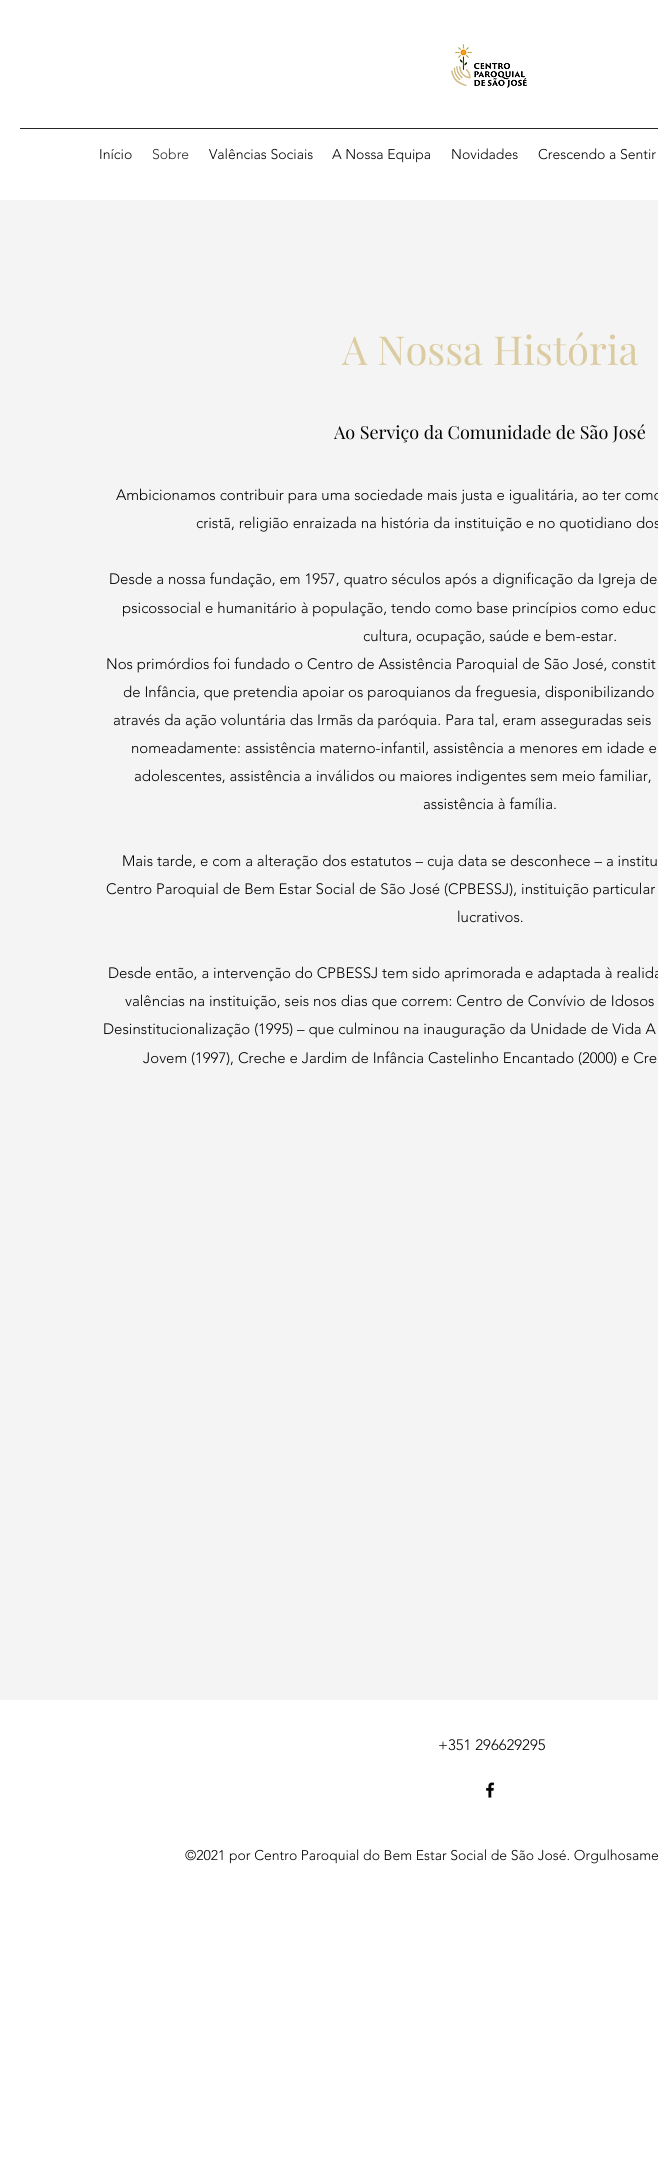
#include <cairo/cairo.h>
#include <math.h>
#include <stddef.h>


static void draw_image(cairo_t *cr, const char *path, double x, double y, double w, double h) {
  cairo_surface_t *image = cairo_image_surface_create_from_png(path);
  cairo_save(cr);
  cairo_set_source_surface(cr, image, x, y);
  cairo_rectangle(cr, x, y, w, h);
  cairo_fill(cr);
  cairo_restore(cr);
  cairo_surface_destroy(image);
}

static void draw(cairo_t *cr) {
  cairo_set_source_rgb(cr, 1, 1, 1);
  cairo_paint(cr);
  draw_image(cr, "images/1.png", 451, 44, 76, 44);
  cairo_set_source_rgb(cr, 38 / 255.0, 38 / 255.0, 38 / 255.0);
  cairo_rectangle(cr, 20, 128, 638, 1);
  cairo_fill(cr);
  cairo_set_source_rgb(cr, 244 / 255.0, 244 / 255.0, 244 / 255.0);
  cairo_rectangle(cr, 0, 200, 658, 1500);
  cairo_fill(cr);
  draw_image(cr, "images/2.png", 486, 1782, 9, 16);
  cairo_select_font_face(cr, "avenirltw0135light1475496 Light", CAIRO_FONT_SLANT_NORMAL, CAIRO_FONT_WEIGHT_NORMAL);
  cairo_set_font_size(cr, 14);
  cairo_set_source_rgb(cr, 0, 0, 0);
  cairo_move_to(cr, 99, 159);
  cairo_show_text(cr, "Início");
  cairo_set_source_rgb(cr, 43 / 255.0, 43 / 255.0, 43 / 255.0);
  cairo_move_to(cr, 152, 159);
  cairo_show_text(cr, "Sobre");
  cairo_set_source_rgb(cr, 0, 0, 0);
  cairo_move_to(cr, 209, 159);
  cairo_show_text(cr, "Valências Sociais");
  cairo_move_to(cr, 332, 159);
  cairo_show_text(cr, "A Nossa Equipa");
  cairo_move_to(cr, 451, 159);
  cairo_show_text(cr, "Novidades");
  cairo_move_to(cr, 538, 159);
  cairo_show_text(cr, "Crescendo a Sentir");
  cairo_select_font_face(cr, "Playfair Display", CAIRO_FONT_SLANT_NORMAL, CAIRO_FONT_WEIGHT_NORMAL);
  cairo_set_font_size(cr, 40);
  cairo_set_source_rgb(cr, 220 / 255.0, 204 / 255.0, 162 / 255.0);
  cairo_move_to(cr, 342, 365);
  cairo_show_text(cr, "A Nossa História");
  cairo_set_font_size(cr, 18);
  cairo_set_source_rgb(cr, 0, 0, 0);
  cairo_move_to(cr, 334, 439);
  cairo_show_text(cr, "Ao Serviço da Comunidade de São José");
  cairo_select_font_face(cr, "avenirltw0135light1475496 Light", CAIRO_FONT_SLANT_NORMAL, CAIRO_FONT_WEIGHT_NORMAL);
  cairo_set_font_size(cr, 15);
  cairo_move_to(cr, 116, 500);
  cairo_show_text(cr, "Ambicionamos contribuir para uma sociedade mais justa e igualitária, ao ter como");
  cairo_move_to(cr, 196, 528);
  cairo_show_text(cr, "cristã, religião enraizada na história da instituição e no quotidiano dos");
  cairo_move_to(cr, 109, 584);
  cairo_show_text(cr, "Desde a nossa fundação, em 1957, quatro séculos após a dignificação da Igreja de");
  cairo_move_to(cr, 122, 613);
  cairo_show_text(cr, "psicossocial e humanitário à população, tendo como base princípios como educ");
  cairo_move_to(cr, 363, 641);
  cairo_show_text(cr, "cultura, ocupação, saúde e bem-estar.");
  cairo_move_to(cr, 106, 669);
  cairo_show_text(cr, "Nos primórdios foi fundado o Centro de Assistência Paroquial de São José, constit");
  cairo_move_to(cr, 123, 697);
  cairo_show_text(cr, "de Infância, que pretendia apoiar os paroquianos da freguesia, disponibilizando");
  cairo_move_to(cr, 113, 725);
  cairo_show_text(cr, "através da ação voluntária das Irmãs da paróquia. Para tal, eram asseguradas seis");
  cairo_move_to(cr, 131, 753);
  cairo_show_text(cr, "nomeadamente: assistência materno-infantil, assistência a menores em idade e");
  cairo_move_to(cr, 134, 781);
  cairo_show_text(cr, "adolescentes, assistência a inválidos ou maiores indigentes sem meio familiar,");
  cairo_move_to(cr, 423, 809);
  cairo_show_text(cr, "assistência à família.");
  cairo_move_to(cr, 122, 866);
  cairo_show_text(cr, "Mais tarde, e com a alteração dos estatutos – cuja data se desconhece – a institu");
  cairo_move_to(cr, 106, 894);
  cairo_show_text(cr, "Centro Paroquial de Bem Estar Social de São José (CPBESSJ), instituição particular");
  cairo_move_to(cr, 457, 922);
  cairo_show_text(cr, "lucrativos.");
  cairo_move_to(cr, 108, 978);
  cairo_show_text(cr, "Desde então, a intervenção do CPBESSJ tem sido aprimorada e adaptada à realida");
  cairo_move_to(cr, 125, 1006);
  cairo_show_text(cr, "valências na instituição, seis nos dias que correm: Centro de Convívio de Idosos");
  cairo_move_to(cr, 103, 1034);
  cairo_show_text(cr, "Desinstitucionalização (1995) – que culminou na inauguração da Unidade de Vida A");
  cairo_move_to(cr, 143, 1063);
  cairo_show_text(cr, "Jovem (1997), Creche e Jardim de Infância Castelinho Encantado (2000) e Cre");
  cairo_move_to(cr, 438, 1750);
  cairo_show_text(cr, "+351 296629295");
  cairo_set_font_size(cr, 14);
  cairo_move_to(cr, 185, 1860);
  cairo_show_text(cr, "©2021 por Centro Paroquial do Bem Estar Social de São José. Orgulhosame");
}

int main(void) {
  cairo_surface_t *surface = cairo_image_surface_create(CAIRO_FORMAT_RGB24, 658, 2180);
  cairo_t *cr = cairo_create(surface);
  cairo_font_options_t *options = cairo_font_options_create();
  cairo_font_options_set_hint_metrics(options, CAIRO_HINT_METRICS_OFF);
  cairo_font_options_set_hint_style(options, CAIRO_HINT_STYLE_NONE);
  cairo_set_font_options(cr, options);
  cairo_set_miter_limit(cr, 4);
  draw(cr);
  cairo_surface_write_to_png(surface, "out.png");
  cairo_font_options_destroy(options);
  cairo_destroy(cr);
  cairo_surface_destroy(surface);
  return 0;
}
